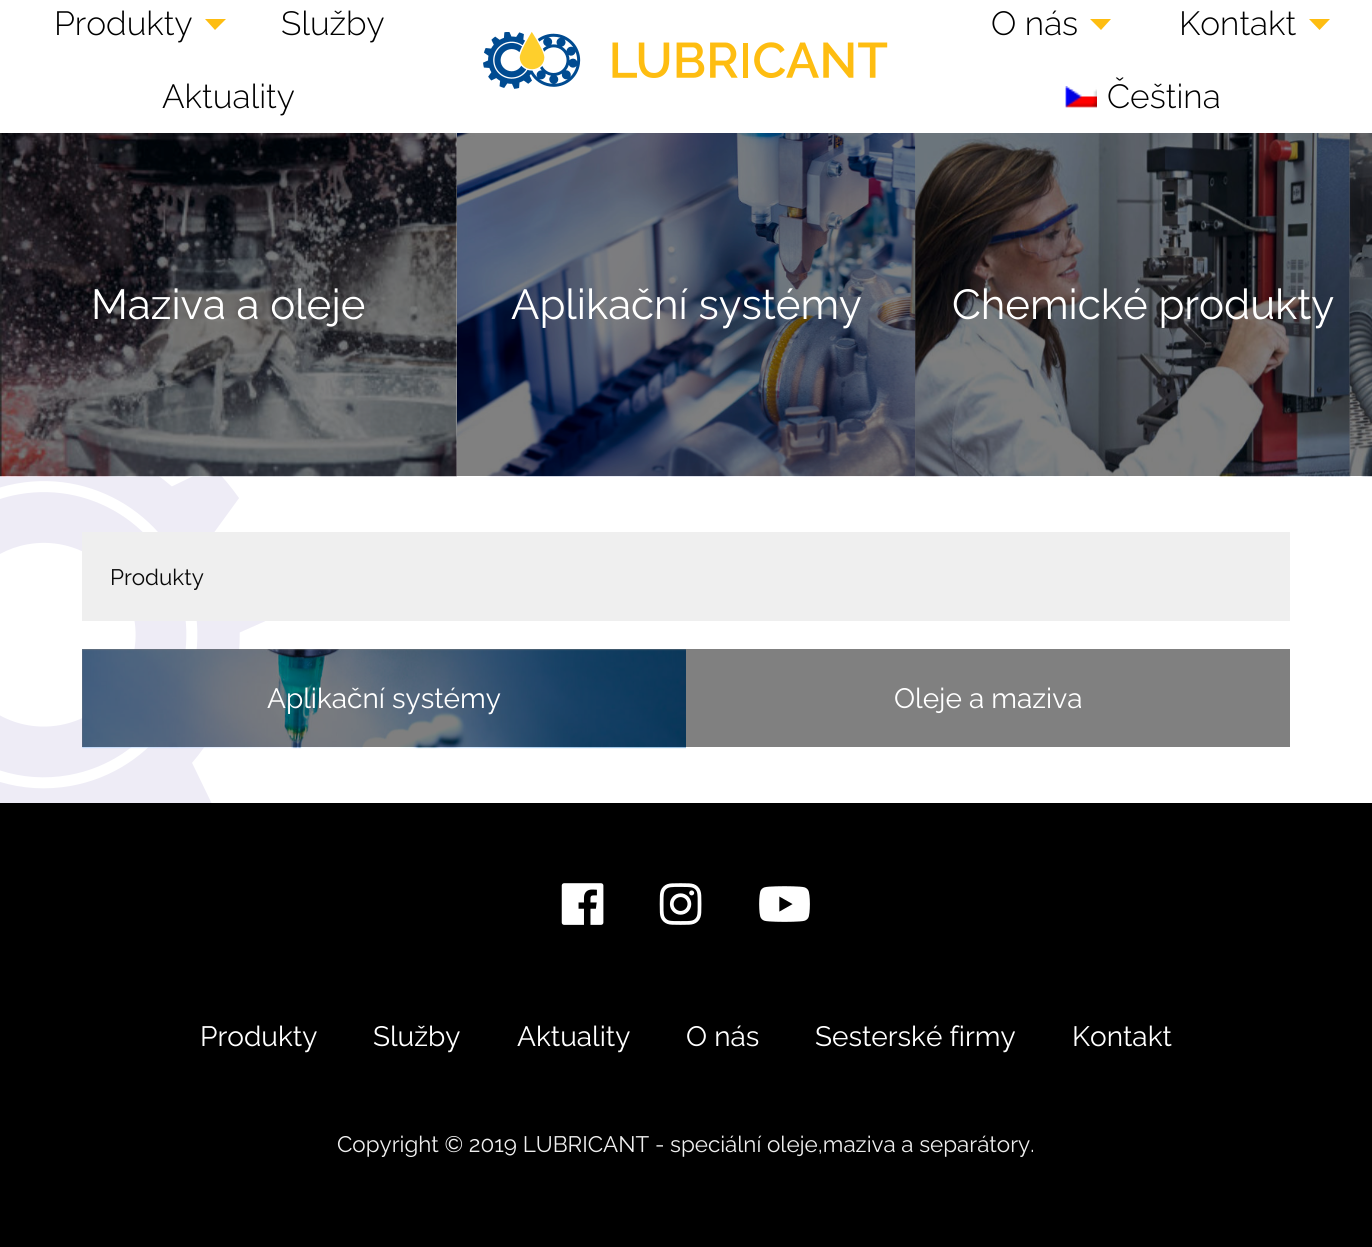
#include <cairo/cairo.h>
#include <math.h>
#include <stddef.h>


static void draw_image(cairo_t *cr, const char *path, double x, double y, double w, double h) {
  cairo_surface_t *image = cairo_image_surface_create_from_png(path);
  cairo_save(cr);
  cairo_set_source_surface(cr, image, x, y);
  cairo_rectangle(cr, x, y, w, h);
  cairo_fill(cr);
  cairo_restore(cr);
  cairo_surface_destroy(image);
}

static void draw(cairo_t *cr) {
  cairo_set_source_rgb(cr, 1, 1, 1);
  cairo_paint(cr);
  cairo_set_source_rgb(cr, 254 / 255.0, 189 / 255.0, 17 / 255.0);
  cairo_new_path(cr);
  cairo_move_to(cr, 205, 19);
  cairo_line_to(cr, 226, 19);
  cairo_line_to(cr, 215, 30);
  cairo_close_path(cr);
  cairo_fill(cr);
  draw_image(cr, "images/1.png", 483, 32, 405, 57);
  cairo_new_path(cr);
  cairo_move_to(cr, 1090, 19);
  cairo_line_to(cr, 1111, 19);
  cairo_line_to(cr, 1101, 30);
  cairo_close_path(cr);
  cairo_fill(cr);
  cairo_new_path(cr);
  cairo_move_to(cr, 1309, 19);
  cairo_line_to(cr, 1330, 19);
  cairo_line_to(cr, 1319.5, 30);
  cairo_close_path(cr);
  cairo_fill(cr);
  draw_image(cr, "images/2.png", 1065, 86, 32, 22);
  draw_image(cr, "images/6.png", 0, 476, 266, 327);
  draw_image(cr, "images/3.png", 0, 133, 457, 344);
  draw_image(cr, "images/4.png", 457, 133, 459, 344);
  draw_image(cr, "images/5.png", 915, 133, 457, 344);
  cairo_set_source_rgba(cr, 0, 0, 0, 0.5);
  cairo_rectangle(cr, 915, 133, 457, 343);
  cairo_fill(cr);
  cairo_set_source_rgb(cr, 239 / 255.0, 239 / 255.0, 239 / 255.0);
  cairo_rectangle(cr, 82, 532, 1208, 89);
  cairo_fill(cr);
  draw_image(cr, "images/7.png", 82, 649, 604, 100);
  cairo_set_source_rgba(cr, 0, 0, 0, 0.5);
  cairo_rectangle(cr, 82, 649, 604, 98);
  cairo_fill(cr);
  cairo_set_source_rgb(cr, 128 / 255.0, 128 / 255.0, 128 / 255.0);
  cairo_rectangle(cr, 686, 649, 604, 98);
  cairo_fill(cr);
  cairo_set_source_rgb(cr, 0, 0, 0);
  cairo_rectangle(cr, 0, 803, 1372, 444);
  cairo_fill(cr);
  draw_image(cr, "images/8.png", 561, 883, 43, 42);
  draw_image(cr, "images/9.png", 659, 883, 43, 42);
  draw_image(cr, "images/10.png", 759, 886, 51, 36);
  cairo_select_font_face(cr, "Raleway Light", CAIRO_FONT_SLANT_NORMAL, CAIRO_FONT_WEIGHT_NORMAL);
  cairo_set_font_size(cr, 33.5);
  cairo_move_to(cr, 54, 35);
  cairo_show_text(cr, "Produkty");
  cairo_move_to(cr, 281, 35);
  cairo_show_text(cr, "Služby");
  cairo_move_to(cr, 162, 108);
  cairo_show_text(cr, "Aktuality");
  cairo_move_to(cr, 991, 35);
  cairo_show_text(cr, "O nás");
  cairo_move_to(cr, 1179, 35);
  cairo_show_text(cr, "Kontakt");
  cairo_move_to(cr, 1107, 108);
  cairo_show_text(cr, "Čeština");
  cairo_select_font_face(cr, "Raleway", CAIRO_FONT_SLANT_NORMAL, CAIRO_FONT_WEIGHT_NORMAL);
  cairo_set_font_size(cr, 42);
  cairo_set_source_rgb(cr, 1, 1, 1);
  cairo_move_to(cr, 91, 319);
  cairo_show_text(cr, "Maziva a oleje");
  cairo_move_to(cr, 511, 319);
  cairo_show_text(cr, "Aplikační systémy");
  cairo_move_to(cr, 952, 319);
  cairo_show_text(cr, "Chemické produkty");
  cairo_set_font_size(cr, 22.4);
  cairo_set_source_rgb(cr, 10 / 255.0, 10 / 255.0, 10 / 255.0);
  cairo_move_to(cr, 110, 585);
  cairo_show_text(cr, "Produkty");
  cairo_set_font_size(cr, 28);
  cairo_set_source_rgb(cr, 1, 1, 1);
  cairo_move_to(cr, 267, 708);
  cairo_show_text(cr, "Aplikační systémy");
  cairo_move_to(cr, 894, 708);
  cairo_show_text(cr, "Oleje a maziva");
  cairo_move_to(cr, 200, 1046);
  cairo_show_text(cr, "Produkty");
  cairo_move_to(cr, 373, 1046);
  cairo_show_text(cr, "Služby");
  cairo_move_to(cr, 517, 1046);
  cairo_show_text(cr, "Aktuality");
  cairo_move_to(cr, 686, 1046);
  cairo_show_text(cr, "O nás");
  cairo_move_to(cr, 815, 1046);
  cairo_show_text(cr, "Sesterské firmy");
  cairo_move_to(cr, 1072, 1046);
  cairo_show_text(cr, "Kontakt");
  cairo_set_font_size(cr, 22.4);
  cairo_set_source_rgb(cr, 239 / 255.0, 239 / 255.0, 239 / 255.0);
  cairo_move_to(cr, 337, 1152);
  cairo_show_text(cr, "Copyright © 2019 LUBRICANT - speciální oleje,maziva a separátory.");
}

int main(void) {
  cairo_surface_t *surface = cairo_image_surface_create(CAIRO_FORMAT_RGB24, 1372, 1247);
  cairo_t *cr = cairo_create(surface);
  cairo_font_options_t *options = cairo_font_options_create();
  cairo_font_options_set_hint_metrics(options, CAIRO_HINT_METRICS_OFF);
  cairo_font_options_set_hint_style(options, CAIRO_HINT_STYLE_NONE);
  cairo_set_font_options(cr, options);
  cairo_set_miter_limit(cr, 4);
  draw(cr);
  cairo_surface_write_to_png(surface, "out.png");
  cairo_font_options_destroy(options);
  cairo_destroy(cr);
  cairo_surface_destroy(surface);
  return 0;
}
